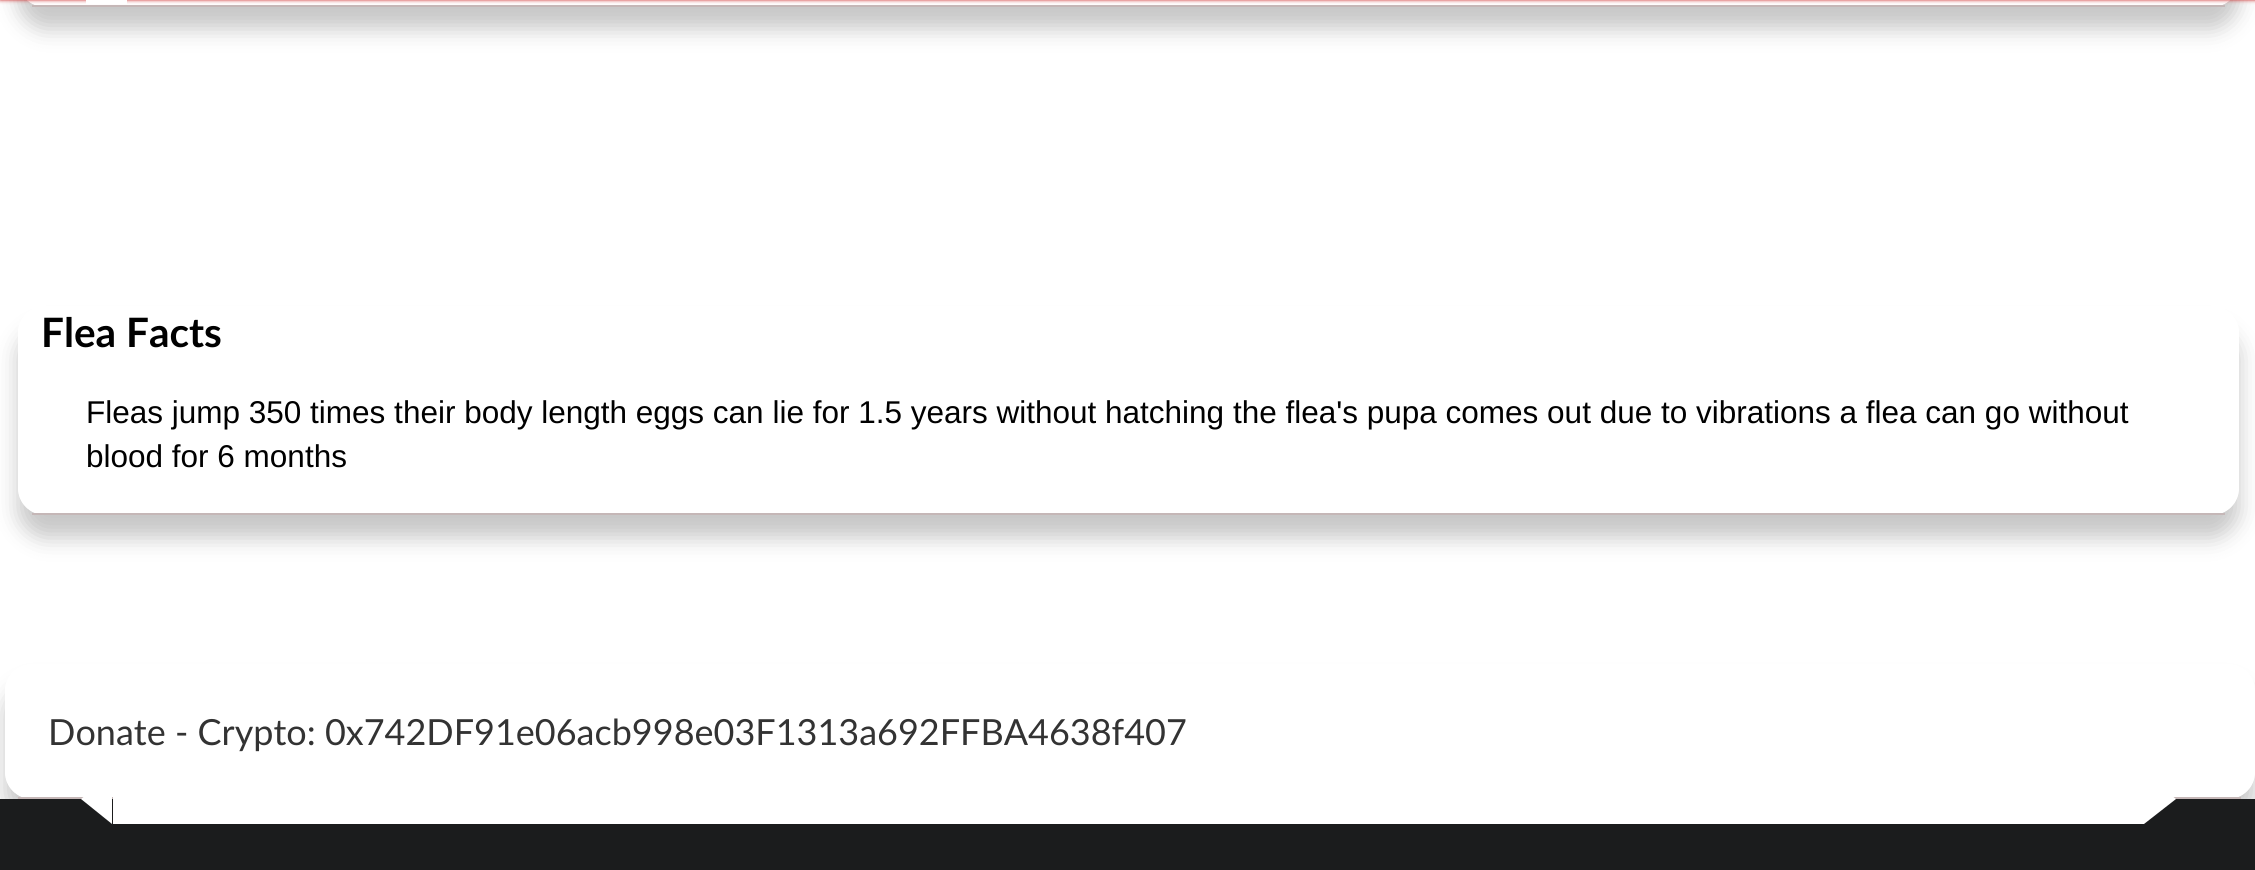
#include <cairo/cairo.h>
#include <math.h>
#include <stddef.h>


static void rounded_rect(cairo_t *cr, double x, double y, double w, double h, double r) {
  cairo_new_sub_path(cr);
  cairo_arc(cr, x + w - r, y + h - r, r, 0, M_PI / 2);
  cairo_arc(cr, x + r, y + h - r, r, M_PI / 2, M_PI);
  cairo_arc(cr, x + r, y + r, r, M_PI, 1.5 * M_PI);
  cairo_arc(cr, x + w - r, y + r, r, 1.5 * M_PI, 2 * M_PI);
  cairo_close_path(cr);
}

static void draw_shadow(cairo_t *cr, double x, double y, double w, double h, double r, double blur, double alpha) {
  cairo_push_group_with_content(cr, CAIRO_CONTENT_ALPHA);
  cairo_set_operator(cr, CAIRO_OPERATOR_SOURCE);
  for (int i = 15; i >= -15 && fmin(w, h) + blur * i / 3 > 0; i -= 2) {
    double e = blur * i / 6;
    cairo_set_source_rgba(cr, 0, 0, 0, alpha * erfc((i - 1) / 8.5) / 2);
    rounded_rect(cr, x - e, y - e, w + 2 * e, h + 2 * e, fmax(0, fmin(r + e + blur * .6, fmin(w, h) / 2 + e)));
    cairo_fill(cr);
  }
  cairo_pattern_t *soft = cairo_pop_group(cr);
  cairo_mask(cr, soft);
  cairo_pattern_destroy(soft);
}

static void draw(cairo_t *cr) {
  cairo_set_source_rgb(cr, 1, 1, 1);
  cairo_paint(cr);
  cairo_save(cr);
  cairo_set_fill_rule(cr, CAIRO_FILL_RULE_EVEN_ODD);
  cairo_new_path(cr);
  cairo_move_to(cr, 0, 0);
  cairo_line_to(cr, 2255, 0);
  cairo_line_to(cr, 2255, 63);
  cairo_line_to(cr, 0, 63);
  cairo_close_path(cr);
  cairo_move_to(cr, 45, -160);
  cairo_line_to(cr, 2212, -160);
  cairo_curve_to(cr, 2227, -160, 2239, -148, 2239, -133);
  cairo_line_to(cr, 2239, -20);
  cairo_curve_to(cr, 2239, -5, 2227, 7, 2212, 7);
  cairo_line_to(cr, 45, 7);
  cairo_curve_to(cr, 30, 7, 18, -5, 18, -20);
  cairo_line_to(cr, 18, -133);
  cairo_curve_to(cr, 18, -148, 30, -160, 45, -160);
  cairo_close_path(cr);
  cairo_clip(cr);
  cairo_set_source_rgb(cr, 0, 0, 0);
  draw_shadow(cr, 18, -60, 2221, 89, 27, 11, 0.22);
  cairo_restore(cr);
  cairo_set_source_rgb(cr, 197 / 255.0, 183 / 255.0, 183 / 255.0);
  cairo_rectangle(cr, 32, 5, 2193, 2);
  cairo_fill(cr);
  cairo_set_source_rgb(cr, 204 / 255.0, 36 / 255.0, 36 / 255.0);
  draw_shadow(cr, 0, -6, 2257, 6, 0, 2, 1);
  cairo_set_source_rgb(cr, 1, 1, 1);
  cairo_rectangle(cr, 86, 0, 41, 4);
  cairo_fill(cr);
  cairo_save(cr);
  cairo_set_fill_rule(cr, CAIRO_FILL_RULE_EVEN_ODD);
  cairo_new_path(cr);
  cairo_move_to(cr, 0, 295);
  cairo_line_to(cr, 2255, 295);
  cairo_line_to(cr, 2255, 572);
  cairo_line_to(cr, 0, 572);
  cairo_close_path(cr);
  cairo_move_to(cr, 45, 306);
  cairo_line_to(cr, 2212, 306);
  cairo_curve_to(cr, 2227, 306, 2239, 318, 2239, 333);
  cairo_line_to(cr, 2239, 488);
  cairo_curve_to(cr, 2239, 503, 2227, 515, 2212, 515);
  cairo_line_to(cr, 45, 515);
  cairo_curve_to(cr, 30, 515, 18, 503, 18, 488);
  cairo_line_to(cr, 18, 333);
  cairo_curve_to(cr, 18, 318, 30, 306, 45, 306);
  cairo_close_path(cr);
  cairo_clip(cr);
  cairo_set_source_rgb(cr, 0, 0, 0);
  draw_shadow(cr, 18, 329, 2221, 209, 27, 11, 0.22);
  cairo_restore(cr);
  cairo_set_source_rgb(cr, 197 / 255.0, 183 / 255.0, 183 / 255.0);
  cairo_rectangle(cr, 32, 513, 2193, 2);
  cairo_fill(cr);
  cairo_save(cr);
  cairo_set_fill_rule(cr, CAIRO_FILL_RULE_EVEN_ODD);
  cairo_new_path(cr);
  cairo_move_to(cr, 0, 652);
  cairo_line_to(cr, 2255, 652);
  cairo_line_to(cr, 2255, 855);
  cairo_line_to(cr, 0, 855);
  cairo_close_path(cr);
  cairo_move_to(cr, 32, 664);
  cairo_line_to(cr, 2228, 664);
  cairo_curve_to(cr, 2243, 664, 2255, 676, 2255, 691);
  cairo_line_to(cr, 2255, 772);
  cairo_curve_to(cr, 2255, 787, 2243, 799, 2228, 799);
  cairo_line_to(cr, 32, 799);
  cairo_curve_to(cr, 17, 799, 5, 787, 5, 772);
  cairo_line_to(cr, 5, 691);
  cairo_curve_to(cr, 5, 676, 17, 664, 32, 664);
  cairo_close_path(cr);
  cairo_clip(cr);
  cairo_set_source_rgb(cr, 0, 0, 0);
  draw_shadow(cr, 5, 686, 2250, 135, 27, 11, 0.22);
  cairo_restore(cr);
  cairo_rectangle(cr, 18, 797, 2223, 2);
  cairo_fill(cr);
  cairo_set_source_rgb(cr, 27 / 255.0, 28 / 255.0, 29 / 255.0);
  cairo_rectangle(cr, 0, 799, 2255, 71);
  cairo_fill(cr);
  cairo_set_source_rgb(cr, 1, 1, 1);
  cairo_new_path(cr);
  cairo_move_to(cr, 112, 774);
  cairo_line_to(cr, 112, 824);
  cairo_line_to(cr, 81, 799);
  cairo_close_path(cr);
  cairo_fill(cr);
  cairo_rectangle(cr, 113, 797, 2031, 27);
  cairo_fill(cr);
  cairo_new_path(cr);
  cairo_move_to(cr, 2144, 824);
  cairo_line_to(cr, 2144, 774);
  cairo_line_to(cr, 2176, 799);
  cairo_close_path(cr);
  cairo_fill(cr);
  cairo_select_font_face(cr, "Lato", CAIRO_FONT_SLANT_NORMAL, CAIRO_FONT_WEIGHT_BOLD);
  cairo_set_font_size(cr, 40.5);
  cairo_set_source_rgb(cr, 0, 0, 0);
  cairo_move_to(cr, 41, 347);
  cairo_show_text(cr, "Flea Facts");
  cairo_select_font_face(cr, "Liberation Sans", CAIRO_FONT_SLANT_NORMAL, CAIRO_FONT_WEIGHT_NORMAL);
  cairo_set_font_size(cr, 31.5);
  cairo_move_to(cr, 86, 423);
  cairo_show_text(cr, "Fleas jump 350 times their body length eggs can lie for 1.5 years without hatching the flea's pupa comes out due to vibrations a flea can go without");
  cairo_move_to(cr, 86, 467);
  cairo_show_text(cr, "blood for 6 months");
  cairo_select_font_face(cr, "Lato", CAIRO_FONT_SLANT_NORMAL, CAIRO_FONT_WEIGHT_NORMAL);
  cairo_set_font_size(cr, 36);
  cairo_set_source_rgb(cr, 51 / 255.0, 51 / 255.0, 51 / 255.0);
  cairo_move_to(cr, 48, 745);
  cairo_show_text(cr, "Donate - Crypto: 0x742DF91e06acb998e03F1313a692FFBA4638f407");
}

int main(void) {
  cairo_surface_t *surface = cairo_image_surface_create(CAIRO_FORMAT_RGB24, 2255, 870);
  cairo_t *cr = cairo_create(surface);
  cairo_font_options_t *options = cairo_font_options_create();
  cairo_font_options_set_hint_metrics(options, CAIRO_HINT_METRICS_OFF);
  cairo_font_options_set_hint_style(options, CAIRO_HINT_STYLE_NONE);
  cairo_set_font_options(cr, options);
  cairo_set_miter_limit(cr, 4);
  draw(cr);
  cairo_surface_write_to_png(surface, "out.png");
  cairo_font_options_destroy(options);
  cairo_destroy(cr);
  cairo_surface_destroy(surface);
  return 0;
}
